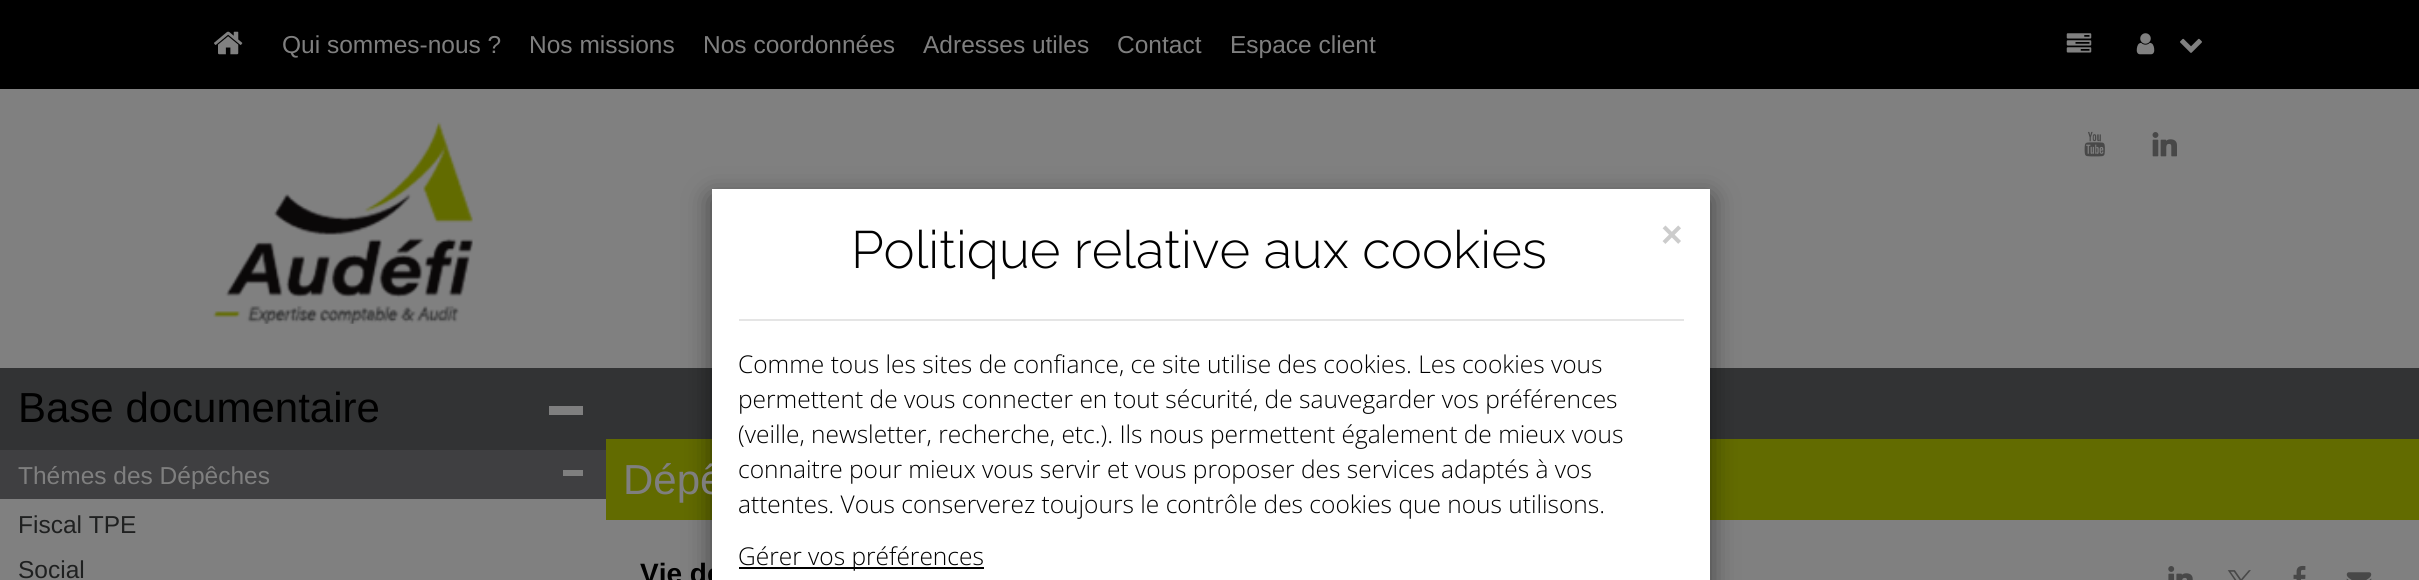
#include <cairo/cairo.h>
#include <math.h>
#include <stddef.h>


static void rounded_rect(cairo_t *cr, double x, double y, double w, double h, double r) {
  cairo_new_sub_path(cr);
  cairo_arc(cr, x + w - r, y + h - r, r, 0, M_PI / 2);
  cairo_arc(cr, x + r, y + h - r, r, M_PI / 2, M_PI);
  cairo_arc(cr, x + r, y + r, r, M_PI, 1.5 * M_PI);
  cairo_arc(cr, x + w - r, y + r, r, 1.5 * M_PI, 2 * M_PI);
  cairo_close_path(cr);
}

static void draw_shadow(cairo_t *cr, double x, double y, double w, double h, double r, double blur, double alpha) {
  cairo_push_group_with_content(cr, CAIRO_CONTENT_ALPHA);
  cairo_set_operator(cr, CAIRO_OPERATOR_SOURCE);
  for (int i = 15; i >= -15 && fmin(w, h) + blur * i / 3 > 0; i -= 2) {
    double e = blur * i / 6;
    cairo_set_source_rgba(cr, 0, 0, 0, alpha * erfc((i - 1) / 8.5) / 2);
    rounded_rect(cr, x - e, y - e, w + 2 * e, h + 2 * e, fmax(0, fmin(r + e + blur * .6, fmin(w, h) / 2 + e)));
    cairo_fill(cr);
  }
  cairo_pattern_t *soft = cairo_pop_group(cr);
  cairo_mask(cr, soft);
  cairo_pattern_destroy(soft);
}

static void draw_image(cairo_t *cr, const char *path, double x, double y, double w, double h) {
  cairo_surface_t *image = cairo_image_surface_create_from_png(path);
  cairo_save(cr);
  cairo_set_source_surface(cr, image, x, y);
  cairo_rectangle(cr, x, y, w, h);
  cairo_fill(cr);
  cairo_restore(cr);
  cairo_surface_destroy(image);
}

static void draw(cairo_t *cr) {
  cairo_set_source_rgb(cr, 128 / 255.0, 128 / 255.0, 128 / 255.0);
  cairo_paint(cr);
  cairo_set_source_rgb(cr, 0, 0, 0);
  cairo_rectangle(cr, 0, 0, 2419, 89);
  cairo_fill(cr);
  draw_image(cr, "images/1.png", 214, 31, 29, 24);
  draw_image(cr, "images/2.png", 2066, 33, 26, 20);
  draw_image(cr, "images/3.png", 2136, 33, 19, 22);
  draw_image(cr, "images/4.png", 2180, 38, 22, 15);
  draw_image(cr, "images/5.png", 213, 122, 260, 202);
  draw_image(cr, "images/6.png", 2084, 131, 21, 26);
  draw_image(cr, "images/7.png", 2152, 132, 25, 25);
  cairo_set_source_rgb(cr, 50 / 255.0, 51 / 255.0, 52 / 255.0);
  cairo_rectangle(cr, 0, 368, 606, 82);
  cairo_fill(cr);
  cairo_set_source_rgb(cr, 127 / 255.0, 127 / 255.0, 127 / 255.0);
  cairo_rectangle(cr, 549, 406, 34, 9);
  cairo_fill(cr);
  cairo_set_source_rgb(cr, 63 / 255.0, 63 / 255.0, 65 / 255.0);
  cairo_rectangle(cr, 0, 450, 606, 49);
  cairo_fill(cr);
  cairo_set_source_rgb(cr, 127 / 255.0, 127 / 255.0, 127 / 255.0);
  cairo_rectangle(cr, 563, 470, 20, 6);
  cairo_fill(cr);
  cairo_set_source_rgb(cr, 50 / 255.0, 51 / 255.0, 52 / 255.0);
  cairo_rectangle(cr, 606, 368, 1813, 71);
  cairo_fill(cr);
  cairo_set_source_rgb(cr, 98 / 255.0, 107 / 255.0, 0);
  cairo_rectangle(cr, 606, 439, 1813, 81);
  cairo_fill(cr);
  draw_image(cr, "images/8.png", 2168, 566, 25, 14);
  draw_image(cr, "images/9.png", 2227, 570, 24, 10);
  draw_image(cr, "images/10.png", 2293, 565, 13, 15);
  draw_image(cr, "images/11.png", 2346, 572, 26, 8);
  cairo_set_source_rgb(cr, 0, 0, 0);
  draw_shadow(cr, 712, 198, 998, 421, 0, 13, 0.5);
  cairo_select_font_face(cr, "Liberation Sans", CAIRO_FONT_SLANT_NORMAL, CAIRO_FONT_WEIGHT_NORMAL);
  cairo_set_font_size(cr, 24.5);
  cairo_set_source_rgb(cr, 127 / 255.0, 127 / 255.0, 127 / 255.0);
  cairo_move_to(cr, 282, 53);
  cairo_show_text(cr, "Qui sommes-nous ?");
  cairo_move_to(cr, 529, 53);
  cairo_show_text(cr, "Nos missions");
  cairo_move_to(cr, 703, 53);
  cairo_show_text(cr, "Nos coordonnées");
  cairo_move_to(cr, 923, 53);
  cairo_show_text(cr, "Adresses utiles");
  cairo_move_to(cr, 1117, 53);
  cairo_show_text(cr, "Contact");
  cairo_move_to(cr, 1230, 53);
  cairo_show_text(cr, "Espace client");
  cairo_set_font_size(cr, 42);
  cairo_set_source_rgb(cr, 0, 0, 0);
  cairo_move_to(cr, 18, 422);
  cairo_show_text(cr, "Base documentaire");
  cairo_set_font_size(cr, 24.5);
  cairo_set_source_rgb(cr, 127 / 255.0, 127 / 255.0, 127 / 255.0);
  cairo_move_to(cr, 18, 484);
  cairo_show_text(cr, "Thémes des Dépêches");
  cairo_set_source_rgb(cr, 31 / 255.0, 32 / 255.0, 32 / 255.0);
  cairo_move_to(cr, 18, 533);
  cairo_show_text(cr, "Fiscal TPE");
  cairo_move_to(cr, 18, 578);
  cairo_show_text(cr, "Social");
  cairo_set_font_size(cr, 42);
  cairo_set_source_rgb(cr, 127 / 255.0, 127 / 255.0, 127 / 255.0);
  cairo_move_to(cr, 623, 494);
  cairo_show_text(cr, "Dépê");
  cairo_select_font_face(cr, "Liberation Sans", CAIRO_FONT_SLANT_NORMAL, CAIRO_FONT_WEIGHT_BOLD);
  cairo_set_font_size(cr, 28);
  cairo_set_source_rgb(cr, 0, 0, 0);
  cairo_move_to(cr, 640, 583);
  cairo_show_text(cr, "Vie de");
  cairo_set_source_rgb(cr, 1, 1, 1);
  cairo_rectangle(cr, 712, 189, 998, 391);
  cairo_fill(cr);
  cairo_select_font_face(cr, "Raleway Thin", CAIRO_FONT_SLANT_NORMAL, CAIRO_FONT_WEIGHT_NORMAL);
  cairo_set_font_size(cr, 52.5);
  cairo_set_source_rgb(cr, 0, 0, 0);
  cairo_move_to(cr, 851, 268);
  cairo_show_text(cr, "Politique relative aux cookies");
  cairo_select_font_face(cr, "Liberation Sans", CAIRO_FONT_SLANT_NORMAL, CAIRO_FONT_WEIGHT_BOLD);
  cairo_set_font_size(cr, 37);
  cairo_set_source_rgb(cr, 204 / 255.0, 204 / 255.0, 204 / 255.0);
  cairo_move_to(cr, 1661, 247);
  cairo_show_text(cr, "×");
  cairo_set_source_rgb(cr, 229 / 255.0, 229 / 255.0, 229 / 255.0);
  cairo_rectangle(cr, 739, 319, 945, 2);
  cairo_fill(cr);
  cairo_select_font_face(cr, "Open Sans Light", CAIRO_FONT_SLANT_NORMAL, CAIRO_FONT_WEIGHT_NORMAL);
  cairo_set_font_size(cr, 24.5);
  cairo_set_source_rgb(cr, 0, 0, 0);
  cairo_move_to(cr, 738, 373);
  cairo_show_text(cr, "Comme tous les sites de confiance, ce site utilise des cookies. Les cookies vous");
  cairo_move_to(cr, 738, 408);
  cairo_show_text(cr, "permettent de vous connecter en tout sécurité, de sauvegarder vos préférences");
  cairo_move_to(cr, 738, 443);
  cairo_show_text(cr, "(veille, newsletter, recherche, etc.). Ils nous permettent également de mieux vous");
  cairo_move_to(cr, 738, 478);
  cairo_show_text(cr, "connaitre pour mieux vous servir et vous proposer des services adaptés à vos");
  cairo_move_to(cr, 738, 513);
  cairo_show_text(cr, "attentes. Vous conserverez toujours le contrôle des cookies que nous utilisons.");
  cairo_rectangle(cr, 739, 567, 245, 2);
  cairo_fill(cr);
  cairo_move_to(cr, 738, 565);
  cairo_show_text(cr, "Gérer vos préférences");
}

int main(void) {
  cairo_surface_t *surface = cairo_image_surface_create(CAIRO_FORMAT_RGB24, 2419, 580);
  cairo_t *cr = cairo_create(surface);
  cairo_font_options_t *options = cairo_font_options_create();
  cairo_font_options_set_hint_metrics(options, CAIRO_HINT_METRICS_OFF);
  cairo_font_options_set_hint_style(options, CAIRO_HINT_STYLE_NONE);
  cairo_set_font_options(cr, options);
  cairo_set_miter_limit(cr, 4);
  draw(cr);
  cairo_surface_write_to_png(surface, "out.png");
  cairo_font_options_destroy(options);
  cairo_destroy(cr);
  cairo_surface_destroy(surface);
  return 0;
}
